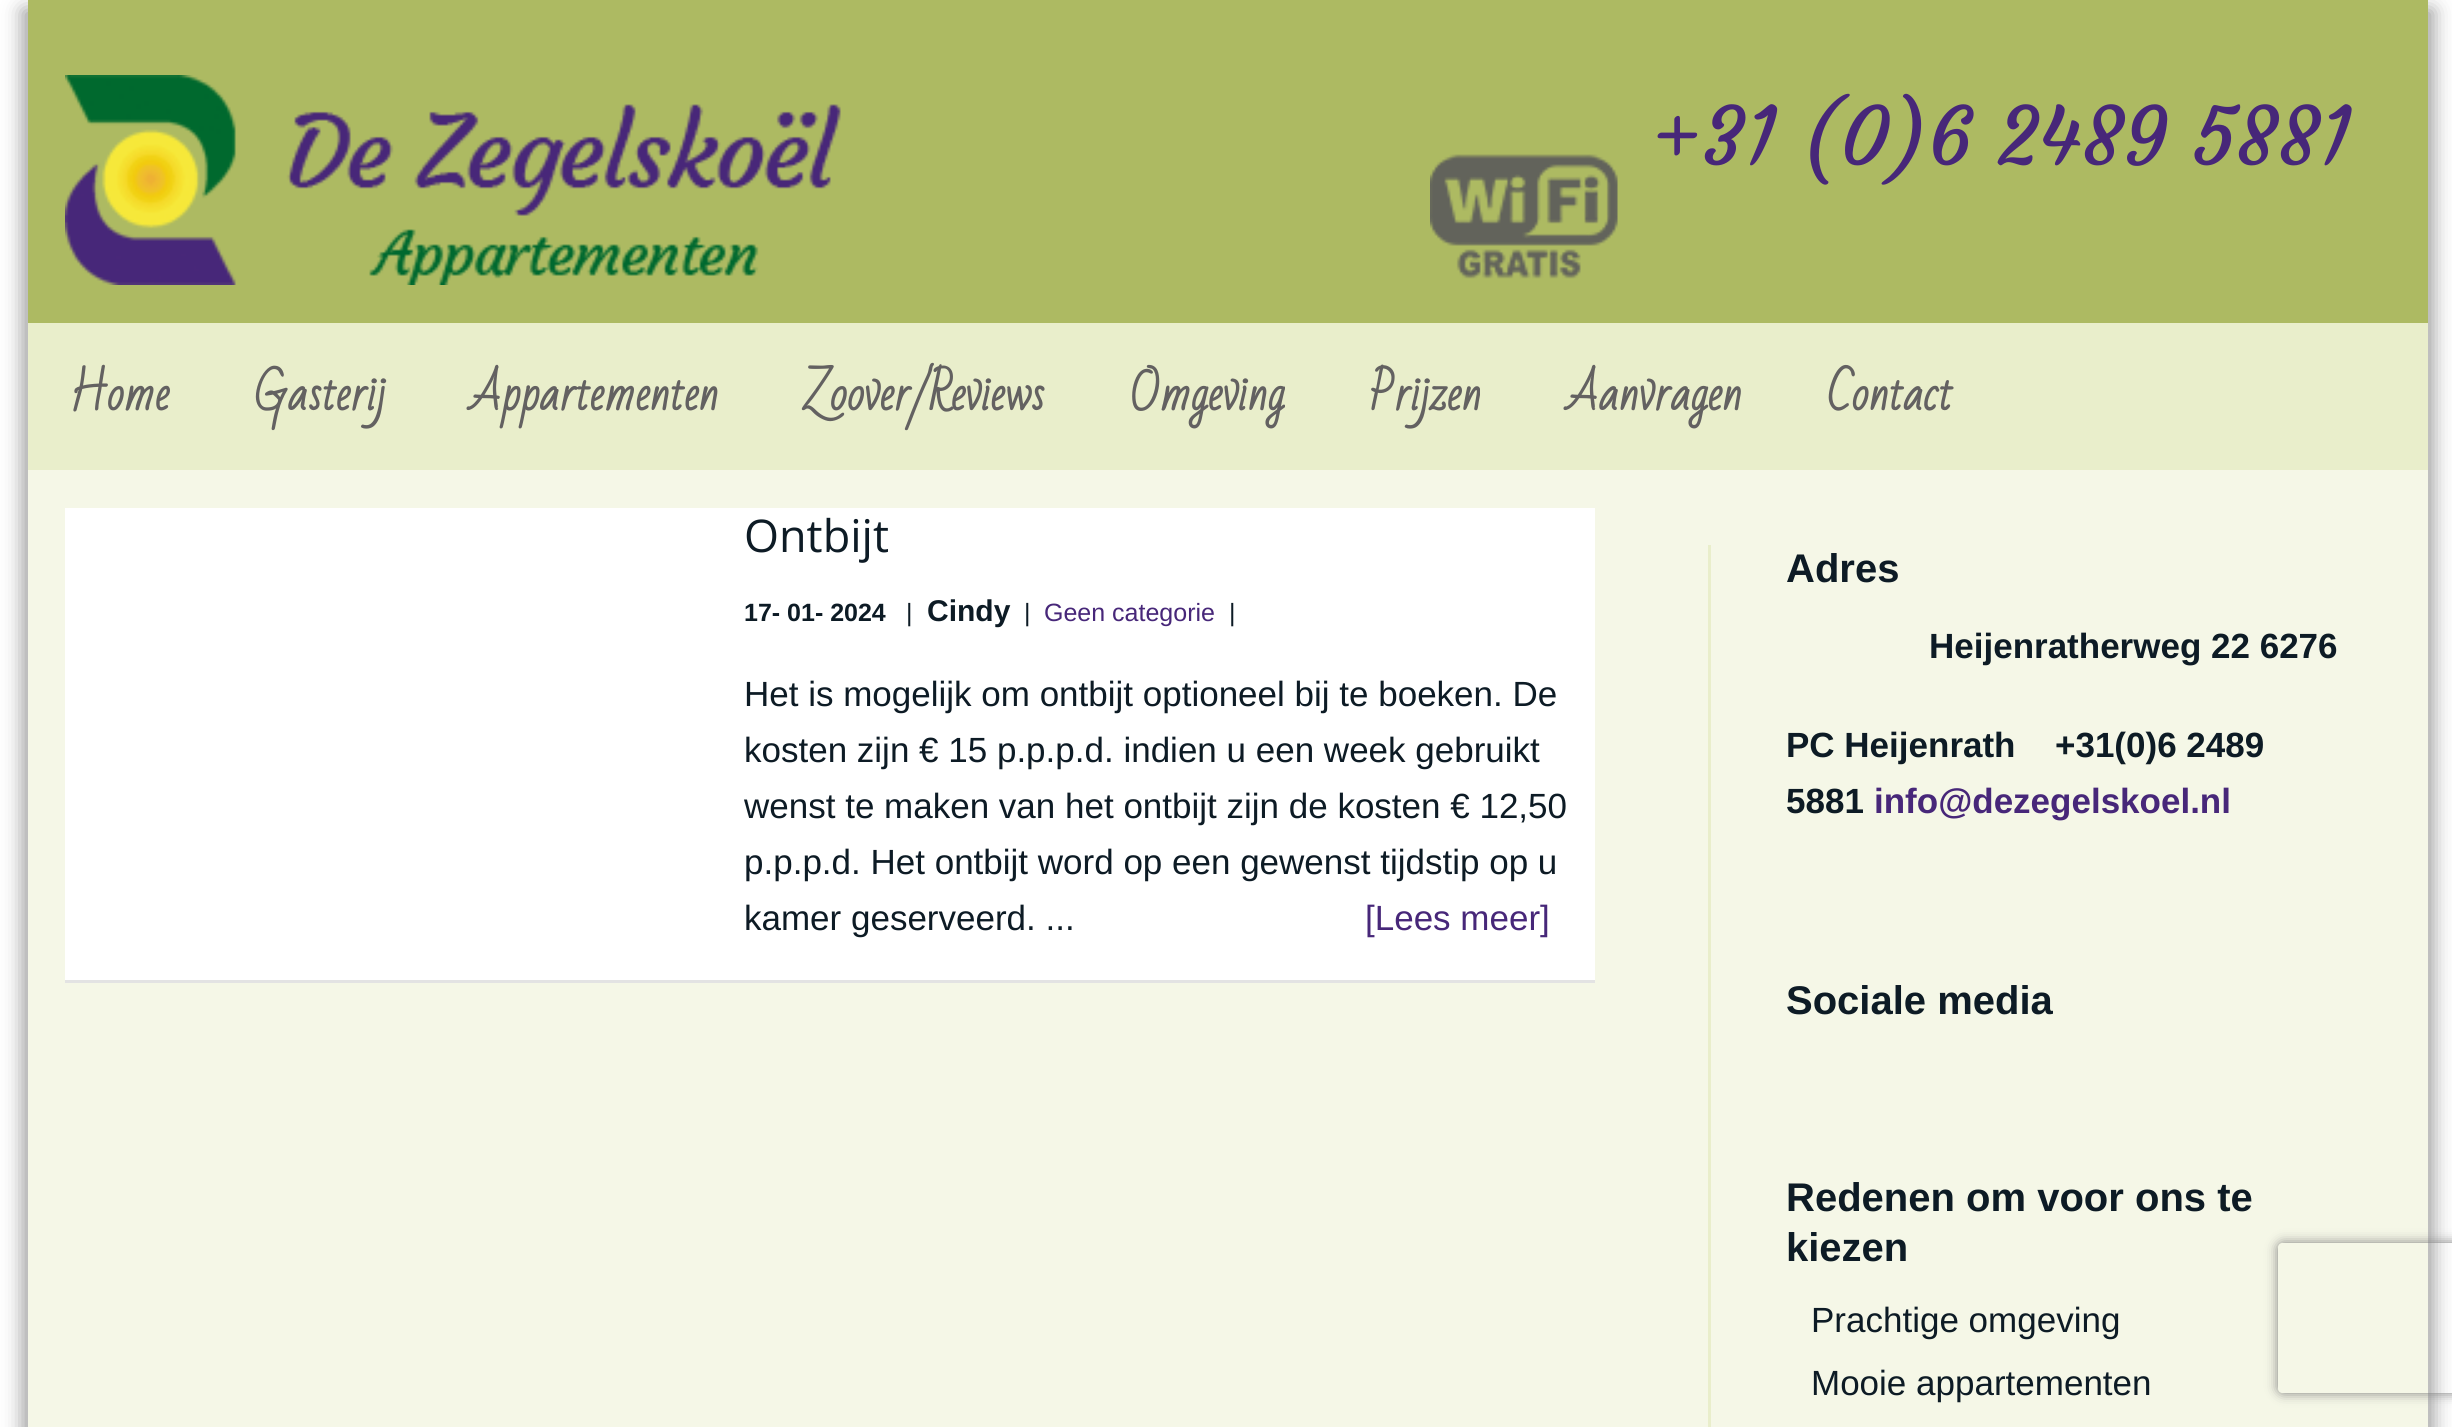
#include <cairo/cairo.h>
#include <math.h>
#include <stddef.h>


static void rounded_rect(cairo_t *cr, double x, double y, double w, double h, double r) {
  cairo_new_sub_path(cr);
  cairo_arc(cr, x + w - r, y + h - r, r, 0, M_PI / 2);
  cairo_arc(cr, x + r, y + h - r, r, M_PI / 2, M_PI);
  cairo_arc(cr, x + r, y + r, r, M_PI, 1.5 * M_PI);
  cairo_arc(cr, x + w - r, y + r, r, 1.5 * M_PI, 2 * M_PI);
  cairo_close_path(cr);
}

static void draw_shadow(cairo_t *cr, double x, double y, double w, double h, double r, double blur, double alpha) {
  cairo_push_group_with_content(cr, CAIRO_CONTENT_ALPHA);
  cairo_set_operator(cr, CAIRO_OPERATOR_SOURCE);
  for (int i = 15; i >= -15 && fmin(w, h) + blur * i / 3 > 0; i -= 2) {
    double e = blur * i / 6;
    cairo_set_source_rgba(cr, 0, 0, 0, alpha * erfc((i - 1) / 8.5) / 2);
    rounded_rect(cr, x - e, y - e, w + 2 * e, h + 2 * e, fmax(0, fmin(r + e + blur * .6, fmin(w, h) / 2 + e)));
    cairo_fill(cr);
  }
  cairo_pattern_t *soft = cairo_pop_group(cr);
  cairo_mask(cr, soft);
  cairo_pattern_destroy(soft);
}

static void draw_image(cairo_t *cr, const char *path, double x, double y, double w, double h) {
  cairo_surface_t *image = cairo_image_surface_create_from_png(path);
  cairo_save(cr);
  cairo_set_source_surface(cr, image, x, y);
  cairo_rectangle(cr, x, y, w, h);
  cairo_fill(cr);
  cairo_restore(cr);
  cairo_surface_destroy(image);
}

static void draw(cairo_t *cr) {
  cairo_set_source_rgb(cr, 1, 1, 1);
  cairo_paint(cr);
  cairo_set_source_rgb(cr, 153 / 255.0, 153 / 255.0, 153 / 255.0);
  draw_shadow(cr, 23, 10, 2380, 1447, 0, 10, 1);
  draw_shadow(cr, 53, 10, 2380, 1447, 0, 10, 1);
  cairo_set_source_rgb(cr, 173 / 255.0, 186 / 255.0, 98 / 255.0);
  cairo_rectangle(cr, 28, 0, 2400, 323);
  cairo_fill(cr);
  draw_image(cr, "images/1.png", 65, 75, 776, 210);
  draw_image(cr, "images/2.png", 1430, 154, 188, 125);
  cairo_set_source_rgb(cr, 233 / 255.0, 238 / 255.0, 203 / 255.0);
  cairo_rectangle(cr, 28, 323, 2400, 147);
  cairo_fill(cr);
  cairo_set_source_rgb(cr, 245 / 255.0, 247 / 255.0, 231 / 255.0);
  cairo_rectangle(cr, 28, 470, 2400, 957);
  cairo_fill(cr);
  cairo_set_source_rgb(cr, 1, 1, 1);
  cairo_rectangle(cr, 65, 508, 1530, 472);
  cairo_fill(cr);
  cairo_set_source_rgb(cr, 227 / 255.0, 227 / 255.0, 227 / 255.0);
  cairo_rectangle(cr, 65, 980, 1530, 3);
  cairo_fill(cr);
  cairo_set_source_rgb(cr, 233 / 255.0, 238 / 255.0, 203 / 255.0);
  cairo_rectangle(cr, 1708, 545, 3, 882);
  cairo_fill(cr);
  cairo_save(cr);
  cairo_set_fill_rule(cr, CAIRO_FILL_RULE_EVEN_ODD);
  cairo_new_path(cr);
  cairo_move_to(cr, 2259, 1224);
  cairo_line_to(cr, 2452, 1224);
  cairo_line_to(cr, 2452, 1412);
  cairo_line_to(cr, 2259, 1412);
  cairo_close_path(cr);
  cairo_move_to(cr, 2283, 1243);
  cairo_line_to(cr, 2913, 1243);
  cairo_curve_to(cr, 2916, 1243, 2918, 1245, 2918, 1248);
  cairo_line_to(cr, 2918, 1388);
  cairo_curve_to(cr, 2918, 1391, 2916, 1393, 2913, 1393);
  cairo_line_to(cr, 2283, 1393);
  cairo_curve_to(cr, 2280, 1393, 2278, 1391, 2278, 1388);
  cairo_line_to(cr, 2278, 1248);
  cairo_curve_to(cr, 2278, 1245, 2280, 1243, 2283, 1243);
  cairo_close_path(cr);
  cairo_clip(cr);
  cairo_set_source_rgb(cr, 128 / 255.0, 128 / 255.0, 128 / 255.0);
  draw_shadow(cr, 2278, 1243, 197, 150, 5, 6, 1);
  cairo_restore(cr);
  cairo_select_font_face(cr, "Courgette", CAIRO_FONT_SLANT_NORMAL, CAIRO_FONT_WEIGHT_NORMAL);
  cairo_set_font_size(cr, 80);
  cairo_set_source_rgb(cr, 71 / 255.0, 39 / 255.0, 121 / 255.0);
  cairo_move_to(cr, 1652, 165);
  cairo_show_text(cr, "+31 (0)6 2489 5881");
  cairo_select_font_face(cr, "Bad Script", CAIRO_FONT_SLANT_NORMAL, CAIRO_FONT_WEIGHT_BOLD);
  cairo_set_font_size(cr, 45);
  cairo_set_source_rgb(cr, 99 / 255.0, 97 / 255.0, 97 / 255.0);
  cairo_move_to(cr, 69, 410);
  cairo_show_text(cr, "Home");
  cairo_move_to(cr, 254, 410);
  cairo_show_text(cr, "Gasterij");
  cairo_move_to(cr, 470, 410);
  cairo_show_text(cr, "Appartementen");
  cairo_move_to(cr, 804, 410);
  cairo_show_text(cr, "Zoover/Reviews");
  cairo_move_to(cr, 1130, 410);
  cairo_show_text(cr, "Omgeving");
  cairo_move_to(cr, 1369, 410);
  cairo_show_text(cr, "Prijzen");
  cairo_move_to(cr, 1567, 410);
  cairo_show_text(cr, "Aanvragen");
  cairo_move_to(cr, 1827, 410);
  cairo_show_text(cr, "Contact");
  cairo_select_font_face(cr, "Open Sans", CAIRO_FONT_SLANT_NORMAL, CAIRO_FONT_WEIGHT_NORMAL);
  cairo_set_source_rgb(cr, 13 / 255.0, 27 / 255.0, 37 / 255.0);
  cairo_move_to(cr, 744, 552);
  cairo_show_text(cr, "Ontbijt");
  cairo_select_font_face(cr, "Liberation Sans", CAIRO_FONT_SLANT_NORMAL, CAIRO_FONT_WEIGHT_BOLD);
  cairo_set_font_size(cr, 25);
  cairo_move_to(cr, 744, 621);
  cairo_show_text(cr, "17- 01- 2024");
  cairo_select_font_face(cr, "Liberation Sans", CAIRO_FONT_SLANT_NORMAL, CAIRO_FONT_WEIGHT_NORMAL);
  cairo_move_to(cr, 906, 621);
  cairo_show_text(cr, "|");
  cairo_select_font_face(cr, "Liberation Sans", CAIRO_FONT_SLANT_NORMAL, CAIRO_FONT_WEIGHT_BOLD);
  cairo_set_font_size(cr, 30);
  cairo_move_to(cr, 927, 621);
  cairo_show_text(cr, "Cindy");
  cairo_select_font_face(cr, "Liberation Sans", CAIRO_FONT_SLANT_NORMAL, CAIRO_FONT_WEIGHT_NORMAL);
  cairo_set_font_size(cr, 25);
  cairo_move_to(cr, 1024, 621);
  cairo_show_text(cr, "|");
  cairo_set_source_rgb(cr, 71 / 255.0, 39 / 255.0, 121 / 255.0);
  cairo_move_to(cr, 1044, 621);
  cairo_show_text(cr, "Geen categorie");
  cairo_set_source_rgb(cr, 13 / 255.0, 27 / 255.0, 37 / 255.0);
  cairo_move_to(cr, 1229, 621);
  cairo_show_text(cr, "|");
  cairo_set_font_size(cr, 35);
  cairo_move_to(cr, 744, 706);
  cairo_show_text(cr, "Het is mogelijk om ontbijt optioneel bij te boeken. De");
  cairo_move_to(cr, 744, 762);
  cairo_show_text(cr, "kosten zijn € 15 p.p.p.d. indien u een week gebruikt");
  cairo_move_to(cr, 744, 818);
  cairo_show_text(cr, "wenst te maken van het ontbijt zijn de kosten € 12,50");
  cairo_move_to(cr, 744, 874);
  cairo_show_text(cr, "p.p.p.d. Het ontbijt word op een gewenst tijdstip op u");
  cairo_move_to(cr, 744, 930);
  cairo_show_text(cr, "kamer geserveerd. ...");
  cairo_set_source_rgb(cr, 71 / 255.0, 39 / 255.0, 121 / 255.0);
  cairo_move_to(cr, 1365, 930);
  cairo_show_text(cr, "[Lees meer]");
  cairo_select_font_face(cr, "Liberation Sans", CAIRO_FONT_SLANT_NORMAL, CAIRO_FONT_WEIGHT_BOLD);
  cairo_set_font_size(cr, 40);
  cairo_set_source_rgb(cr, 13 / 255.0, 27 / 255.0, 37 / 255.0);
  cairo_move_to(cr, 1786, 582);
  cairo_show_text(cr, "Adres");
  cairo_set_font_size(cr, 35);
  cairo_move_to(cr, 1929, 658);
  cairo_show_text(cr, "Heijenratherweg 22 6276");
  cairo_move_to(cr, 1786, 757);
  cairo_show_text(cr, "PC Heijenrath");
  cairo_move_to(cr, 2055, 757);
  cairo_show_text(cr, "+31(0)6 2489");
  cairo_move_to(cr, 1786, 813);
  cairo_show_text(cr, "5881");
  cairo_set_source_rgb(cr, 71 / 255.0, 39 / 255.0, 121 / 255.0);
  cairo_move_to(cr, 1874, 813);
  cairo_show_text(cr, "info@dezegelskoel.nl");
  cairo_set_font_size(cr, 40);
  cairo_set_source_rgb(cr, 13 / 255.0, 27 / 255.0, 37 / 255.0);
  cairo_move_to(cr, 1786, 1014);
  cairo_show_text(cr, "Sociale media");
  cairo_move_to(cr, 1786, 1211);
  cairo_show_text(cr, "Redenen om voor ons te");
  cairo_move_to(cr, 1786, 1261);
  cairo_show_text(cr, "kiezen");
  cairo_select_font_face(cr, "Liberation Sans", CAIRO_FONT_SLANT_NORMAL, CAIRO_FONT_WEIGHT_NORMAL);
  cairo_set_font_size(cr, 35);
  cairo_move_to(cr, 1811, 1332);
  cairo_show_text(cr, "Prachtige omgeving");
  cairo_move_to(cr, 1811, 1395);
  cairo_show_text(cr, "Mooie appartementen");
}

int main(void) {
  cairo_surface_t *surface = cairo_image_surface_create(CAIRO_FORMAT_RGB24, 2452, 1427);
  cairo_t *cr = cairo_create(surface);
  cairo_font_options_t *options = cairo_font_options_create();
  cairo_font_options_set_hint_metrics(options, CAIRO_HINT_METRICS_OFF);
  cairo_font_options_set_hint_style(options, CAIRO_HINT_STYLE_NONE);
  cairo_set_font_options(cr, options);
  cairo_set_miter_limit(cr, 4);
  draw(cr);
  cairo_surface_write_to_png(surface, "out.png");
  cairo_font_options_destroy(options);
  cairo_destroy(cr);
  cairo_surface_destroy(surface);
  return 0;
}
